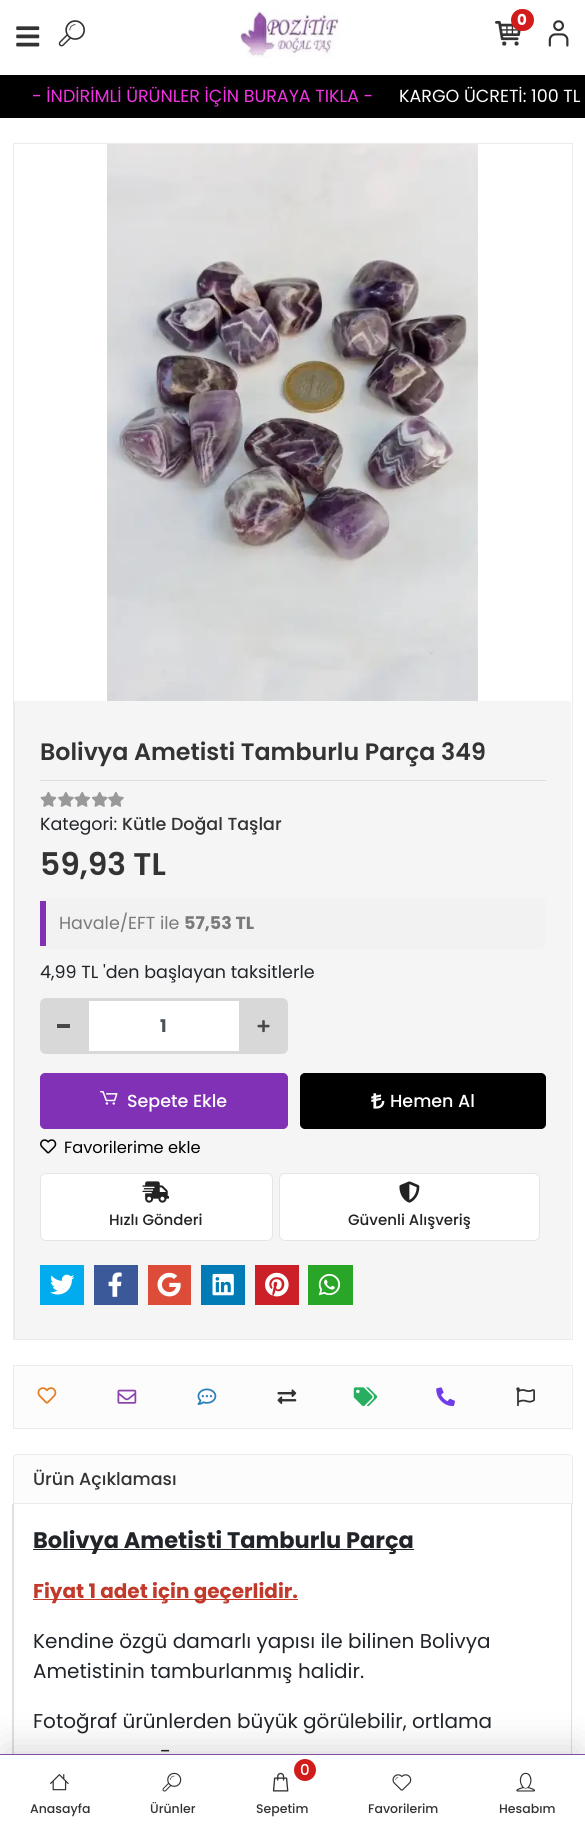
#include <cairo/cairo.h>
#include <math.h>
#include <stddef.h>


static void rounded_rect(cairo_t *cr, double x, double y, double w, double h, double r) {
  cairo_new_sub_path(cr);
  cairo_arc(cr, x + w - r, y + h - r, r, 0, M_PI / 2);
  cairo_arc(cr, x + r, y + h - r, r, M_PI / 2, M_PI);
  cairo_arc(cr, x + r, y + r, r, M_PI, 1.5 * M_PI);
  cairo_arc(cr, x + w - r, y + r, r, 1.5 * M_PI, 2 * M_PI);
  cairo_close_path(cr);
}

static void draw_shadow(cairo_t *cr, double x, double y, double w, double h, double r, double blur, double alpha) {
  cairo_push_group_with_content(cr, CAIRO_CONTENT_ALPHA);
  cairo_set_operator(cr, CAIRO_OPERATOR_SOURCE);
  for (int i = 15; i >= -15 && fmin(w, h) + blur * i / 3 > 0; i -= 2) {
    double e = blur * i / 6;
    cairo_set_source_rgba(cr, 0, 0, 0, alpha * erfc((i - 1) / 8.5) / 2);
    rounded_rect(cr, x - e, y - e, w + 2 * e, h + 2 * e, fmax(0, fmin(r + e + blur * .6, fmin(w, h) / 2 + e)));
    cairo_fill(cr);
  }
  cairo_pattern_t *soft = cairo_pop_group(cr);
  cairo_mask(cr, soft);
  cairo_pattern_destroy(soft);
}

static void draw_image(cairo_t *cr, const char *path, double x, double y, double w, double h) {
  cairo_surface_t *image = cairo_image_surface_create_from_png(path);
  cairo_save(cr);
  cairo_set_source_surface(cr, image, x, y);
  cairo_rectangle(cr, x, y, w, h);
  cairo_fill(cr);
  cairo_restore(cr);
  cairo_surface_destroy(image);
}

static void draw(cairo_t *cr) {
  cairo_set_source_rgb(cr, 1, 1, 1);
  cairo_paint(cr);
  draw_image(cr, "images/1.png", 16, 26, 24, 21);
  draw_image(cr, "images/2.png", 58, 20, 27, 27);
  draw_image(cr, "images/3.png", 240, 10, 100, 48);
  draw_image(cr, "images/4.png", 495, 21, 26, 25);
  cairo_set_source_rgb(cr, 210 / 255.0, 28 / 255.0, 28 / 255.0);
  rounded_rect(cr, 511, 9, 23, 22, 11);
  cairo_fill(cr);
  draw_image(cr, "images/5.png", 548, 20, 21, 27);
  cairo_set_source_rgb(cr, 0, 0, 0);
  cairo_rectangle(cr, 0, 75, 585, 43);
  cairo_fill(cr);
  cairo_rectangle(cr, 13.5, 143.5, 559, 1196);
  cairo_set_source_rgb(cr, 235 / 255.0, 235 / 255.0, 235 / 255.0);
  cairo_set_line_width(cr, 1);
  cairo_stroke(cr);
  draw_image(cr, "images/6.png", 107, 144, 371, 557);
  cairo_set_source_rgb(cr, 245 / 255.0, 245 / 255.0, 245 / 255.0);
  cairo_rectangle(cr, 15, 701, 556, 638);
  cairo_fill(cr);
  cairo_set_source_rgb(cr, 235 / 255.0, 235 / 255.0, 235 / 255.0);
  cairo_rectangle(cr, 14, 701, 1, 638);
  cairo_fill(cr);
  cairo_set_source_rgb(cr, 221 / 255.0, 221 / 255.0, 221 / 255.0);
  cairo_rectangle(cr, 40, 780, 506, 1);
  cairo_fill(cr);
  draw_image(cr, "images/7.png", 40, 791, 17, 16);
  draw_image(cr, "images/8.png", 58, 792, 16, 15);
  draw_image(cr, "images/9.png", 74, 791, 16, 16);
  draw_image(cr, "images/10.png", 91, 791, 17, 16);
  draw_image(cr, "images/8.png", 108, 792, 16, 15);
  cairo_set_source_rgb(cr, 242 / 255.0, 242 / 255.0, 242 / 255.0);
  rounded_rect(cr, 40, 898, 506, 51, 6);
  cairo_fill(cr);
  cairo_set_source_rgb(cr, 128 / 255.0, 49 / 255.0, 181 / 255.0);
  cairo_rectangle(cr, 40, 901, 6, 45);
  cairo_fill(cr);
  cairo_set_source_rgb(cr, 216 / 255.0, 216 / 255.0, 216 / 255.0);
  cairo_new_path(cr);
  cairo_move_to(cr, 46, 998);
  cairo_line_to(cr, 88, 998);
  cairo_line_to(cr, 88, 1054);
  cairo_line_to(cr, 46, 1054);
  cairo_curve_to(cr, 42.5, 1054, 40, 1051.5, 40, 1048);
  cairo_line_to(cr, 40, 1004);
  cairo_curve_to(cr, 40, 1000.5, 42.5, 998, 46, 998);
  cairo_close_path(cr);
  cairo_fill(cr);
  cairo_set_source_rgb(cr, 72 / 255.0, 72 / 255.0, 72 / 255.0);
  cairo_rectangle(cr, 57, 1024, 13, 4);
  cairo_fill(cr);
  cairo_set_source_rgb(cr, 1, 1, 1);
  cairo_rectangle(cr, 89, 1001, 150, 50);
  cairo_fill(cr);
  cairo_set_source_rgb(cr, 216 / 255.0, 216 / 255.0, 216 / 255.0);
  cairo_rectangle(cr, 88, 998, 152, 3);
  cairo_fill(cr);
  cairo_rectangle(cr, 239, 998, 1, 56);
  cairo_fill(cr);
  cairo_rectangle(cr, 88, 1051, 152, 3);
  cairo_fill(cr);
  cairo_rectangle(cr, 88, 998, 1, 56);
  cairo_fill(cr);
  cairo_new_path(cr);
  cairo_move_to(cr, 240, 998);
  cairo_line_to(cr, 282, 998);
  cairo_curve_to(cr, 285.5, 998, 288, 1000.5, 288, 1004);
  cairo_line_to(cr, 288, 1048);
  cairo_curve_to(cr, 288, 1051.5, 285.5, 1054, 282, 1054);
  cairo_line_to(cr, 240, 1054);
  cairo_close_path(cr);
  cairo_fill(cr);
  draw_image(cr, "images/11.png", 257, 1020, 13, 13);
  cairo_set_source_rgb(cr, 128 / 255.0, 49 / 255.0, 181 / 255.0);
  rounded_rect(cr, 40.5, 1073.5, 247, 55, 4.5);
  cairo_fill_preserve(cr);
  cairo_stroke(cr);
  draw_image(cr, "images/12.png", 100, 1091, 18, 14);
  cairo_set_source_rgb(cr, 0, 0, 0);
  rounded_rect(cr, 300.5, 1073.5, 245, 55, 4.5);
  cairo_fill_preserve(cr);
  cairo_stroke(cr);
  draw_image(cr, "images/13.png", 371, 1093, 14, 16);
  draw_image(cr, "images/14.png", 40, 1139, 17, 15);
  cairo_set_source_rgb(cr, 1, 1, 1);
  rounded_rect(cr, 40.5, 1173.5, 232, 67, 5.5);
  cairo_fill_preserve(cr);
  cairo_set_source_rgb(cr, 229 / 255.0, 229 / 255.0, 229 / 255.0);
  cairo_stroke(cr);
  draw_image(cr, "images/15.png", 142, 1181, 28, 22);
  cairo_set_source_rgb(cr, 1, 1, 1);
  rounded_rect(cr, 279.5, 1173.5, 260, 67, 5.5);
  cairo_fill_preserve(cr);
  cairo_set_source_rgb(cr, 229 / 255.0, 229 / 255.0, 229 / 255.0);
  cairo_stroke(cr);
  draw_image(cr, "images/16.png", 399, 1181, 21, 22);
  cairo_set_source_rgb(cr, 0, 172 / 255.0, 237 / 255.0);
  cairo_rectangle(cr, 40, 1265, 44, 40);
  cairo_fill(cr);
  draw_image(cr, "images/17.png", 50, 1274, 25, 21);
  cairo_set_source_rgb(cr, 59 / 255.0, 89 / 255.0, 152 / 255.0);
  cairo_rectangle(cr, 94, 1265, 44, 40);
  cairo_fill(cr);
  draw_image(cr, "images/18.png", 108, 1272, 14, 25);
  cairo_set_source_rgb(cr, 221 / 255.0, 75 / 255.0, 57 / 255.0);
  cairo_rectangle(cr, 148, 1265, 43, 40);
  cairo_fill(cr);
  draw_image(cr, "images/19.png", 157, 1272, 24, 25);
  cairo_set_source_rgb(cr, 0, 123 / 255.0, 182 / 255.0);
  cairo_rectangle(cr, 201, 1265, 44, 40);
  cairo_fill(cr);
  draw_image(cr, "images/20.png", 212, 1273, 22, 23);
  cairo_set_source_rgb(cr, 203 / 255.0, 32 / 255.0, 39 / 255.0);
  cairo_rectangle(cr, 255, 1265, 44, 40);
  cairo_fill(cr);
  draw_image(cr, "images/21.png", 265, 1272, 24, 25);
  cairo_set_source_rgb(cr, 41 / 255.0, 166 / 255.0, 40 / 255.0);
  cairo_rectangle(cr, 308, 1265, 45, 40);
  cairo_fill(cr);
  draw_image(cr, "images/22.png", 318, 1273, 23, 23);
  cairo_rectangle(cr, 13.5, 1365.5, 559, 63);
  cairo_set_source_rgb(cr, 235 / 255.0, 235 / 255.0, 235 / 255.0);
  cairo_stroke(cr);
  cairo_set_source_rgb(cr, 252 / 255.0, 252 / 255.0, 252 / 255.0);
  cairo_rectangle(cr, 14, 1366, 557, 62);
  cairo_fill(cr);
  draw_image(cr, "images/23.png", 37, 1387, 20, 17);
  draw_image(cr, "images/24.png", 117, 1389, 20, 15);
  draw_image(cr, "images/25.png", 197, 1388, 20, 17);
  draw_image(cr, "images/26.png", 277, 1389, 20, 15);
  draw_image(cr, "images/27.png", 353, 1387, 25, 20);
  draw_image(cr, "images/28.png", 436, 1387, 19, 20);
  draw_image(cr, "images/29.png", 516, 1387, 19, 20);
  cairo_new_path(cr);
  cairo_move_to(cr, 17, 1454.5);
  cairo_line_to(cr, 569, 1454.5);
  cairo_curve_to(cr, 571, 1454.5, 572.5, 1456, 572.5, 1458);
  cairo_line_to(cr, 572.5, 1503.5);
  cairo_line_to(cr, 13.5, 1503.5);
  cairo_line_to(cr, 13.5, 1458);
  cairo_curve_to(cr, 13.5, 1456, 15, 1454.5, 17, 1454.5);
  cairo_close_path(cr);
  cairo_fill_preserve(cr);
  cairo_set_source_rgb(cr, 235 / 255.0, 235 / 255.0, 235 / 255.0);
  cairo_stroke(cr);
  cairo_set_source_rgb(cr, 224 / 255.0, 224 / 255.0, 224 / 255.0);
  cairo_set_fill_rule(cr, CAIRO_FILL_RULE_EVEN_ODD);
  cairo_new_path(cr);
  cairo_move_to(cr, 12, 1504);
  cairo_line_to(cr, 572, 1504);
  cairo_line_to(cr, 572, 1800);
  cairo_curve_to(cr, 572, 1803, 570, 1806, 566, 1806);
  cairo_line_to(cr, 19, 1806);
  cairo_curve_to(cr, 15, 1806, 12, 1803, 12, 1800);
  cairo_close_path(cr);
  cairo_move_to(cr, 14, 1504);
  cairo_line_to(cr, 571, 1504);
  cairo_line_to(cr, 571, 1800);
  cairo_curve_to(cr, 571, 1803, 569, 1805, 566, 1805);
  cairo_line_to(cr, 19, 1805);
  cairo_curve_to(cr, 16, 1805, 14, 1803, 14, 1800);
  cairo_close_path(cr);
  cairo_fill(cr);
  cairo_set_source_rgb(cr, 33 / 255.0, 37 / 255.0, 41 / 255.0);
  cairo_rectangle(cr, 33, 1549, 381, 1);
  cairo_fill(cr);
  cairo_set_source_rgb(cr, 192 / 255.0, 57 / 255.0, 43 / 255.0);
  cairo_rectangle(cr, 33, 1599, 265, 1);
  cairo_fill(cr);
  cairo_set_source_rgb(cr, 0, 0, 0);
  draw_shadow(cr, 6, 1748, 573, 68, 0, 19, 0.15);
  cairo_set_source_rgb(cr, 1, 1, 1);
  cairo_rectangle(cr, 0, 1755, 585, 80);
  cairo_fill(cr);
  cairo_set_source_rgb(cr, 132 / 255.0, 79 / 255.0, 161 / 255.0);
  cairo_rectangle(cr, 0, 1754, 585, 1);
  cairo_fill(cr);
  draw_image(cr, "images/30.png", 50, 1774, 19, 17);
  draw_image(cr, "images/31.png", 162, 1772, 20, 20);
  cairo_set_source_rgb(cr, 210 / 255.0, 28 / 255.0, 28 / 255.0);
  cairo_arc(cr, 305, 1770, 11, 0, 2 * M_PI);
  cairo_fill(cr);
  draw_image(cr, "images/32.png", 272, 1772, 17, 20);
  draw_image(cr, "images/33.png", 392, 1774, 20, 17);
  draw_image(cr, "images/34.png", 516, 1772, 19, 20);
  cairo_select_font_face(cr, "Poppins", CAIRO_FONT_SLANT_NORMAL, CAIRO_FONT_WEIGHT_BOLD);
  cairo_set_font_size(cr, 15);
  cairo_set_source_rgb(cr, 1, 1, 1);
  cairo_move_to(cr, 517, 25);
  cairo_show_text(cr, "0");
  cairo_select_font_face(cr, "Poppins", CAIRO_FONT_SLANT_NORMAL, CAIRO_FONT_WEIGHT_NORMAL);
  cairo_set_font_size(cr, 17.5);
  cairo_set_source_rgb(cr, 241 / 255.0, 50 / 255.0, 225 / 255.0);
  cairo_move_to(cr, 32, 102);
  cairo_show_text(cr, "- İNDİRİMLİ ÜRÜNLER İÇİN BURAYA TIKLA -");
  cairo_set_source_rgb(cr, 1, 1, 1);
  cairo_move_to(cr, 399, 102);
  cairo_show_text(cr, "KARGO ÜCRETİ: 100 TL");
  cairo_select_font_face(cr, "Poppins SemiBold", CAIRO_FONT_SLANT_NORMAL, CAIRO_FONT_WEIGHT_NORMAL);
  cairo_set_font_size(cr, 23.75);
  cairo_set_source_rgb(cr, 51 / 255.0, 51 / 255.0, 51 / 255.0);
  cairo_move_to(cr, 40, 760);
  cairo_show_text(cr, "Bolivya Ametisti Tamburlu Parça 349");
  cairo_select_font_face(cr, "Poppins", CAIRO_FONT_SLANT_NORMAL, CAIRO_FONT_WEIGHT_NORMAL);
  cairo_set_font_size(cr, 17.5);
  cairo_set_source_rgb(cr, 33 / 255.0, 37 / 255.0, 41 / 255.0);
  cairo_move_to(cr, 40, 830);
  cairo_show_text(cr, "Kategori:");
  cairo_select_font_face(cr, "Poppins Medium", CAIRO_FONT_SLANT_NORMAL, CAIRO_FONT_WEIGHT_NORMAL);
  cairo_set_source_rgb(cr, 51 / 255.0, 51 / 255.0, 51 / 255.0);
  cairo_move_to(cr, 122, 830);
  cairo_show_text(cr, "Kütle Doğal Taşlar");
  cairo_select_font_face(cr, "Poppins SemiBold", CAIRO_FONT_SLANT_NORMAL, CAIRO_FONT_WEIGHT_NORMAL);
  cairo_set_font_size(cr, 31.25);
  cairo_move_to(cr, 40, 875);
  cairo_show_text(cr, "59,93 TL");
  cairo_select_font_face(cr, "Poppins", CAIRO_FONT_SLANT_NORMAL, CAIRO_FONT_WEIGHT_NORMAL);
  cairo_set_font_size(cr, 17.5);
  cairo_set_source_rgb(cr, 122 / 255.0, 122 / 255.0, 122 / 255.0);
  cairo_move_to(cr, 59, 929);
  cairo_show_text(cr, "Havale/EFT ile");
  cairo_select_font_face(cr, "Poppins", CAIRO_FONT_SLANT_NORMAL, CAIRO_FONT_WEIGHT_BOLD);
  cairo_move_to(cr, 184, 929);
  cairo_show_text(cr, "57,53 TL");
  cairo_select_font_face(cr, "Poppins", CAIRO_FONT_SLANT_NORMAL, CAIRO_FONT_WEIGHT_NORMAL);
  cairo_set_source_rgb(cr, 33 / 255.0, 37 / 255.0, 41 / 255.0);
  cairo_move_to(cr, 40, 978);
  cairo_show_text(cr, "4,99 TL 'den başlayan taksitlerle");
  cairo_select_font_face(cr, "Poppins", CAIRO_FONT_SLANT_NORMAL, CAIRO_FONT_WEIGHT_BOLD);
  cairo_set_source_rgb(cr, 73 / 255.0, 80 / 255.0, 87 / 255.0);
  cairo_move_to(cr, 160, 1032);
  cairo_show_text(cr, "1");
  cairo_select_font_face(cr, "Poppins Medium", CAIRO_FONT_SLANT_NORMAL, CAIRO_FONT_WEIGHT_NORMAL);
  cairo_set_source_rgb(cr, 1, 1, 1);
  cairo_move_to(cr, 127, 1107);
  cairo_show_text(cr, "Sepete Ekle");
  cairo_move_to(cr, 390, 1107);
  cairo_show_text(cr, "Hemen Al");
  cairo_select_font_face(cr, "Poppins", CAIRO_FONT_SLANT_NORMAL, CAIRO_FONT_WEIGHT_NORMAL);
  cairo_set_font_size(cr, 16.25);
  cairo_set_source_rgb(cr, 0, 0, 0);
  cairo_move_to(cr, 64, 1153);
  cairo_show_text(cr, "Favorilerime ekle");
  cairo_select_font_face(cr, "Poppins Medium", CAIRO_FONT_SLANT_NORMAL, CAIRO_FONT_WEIGHT_NORMAL);
  cairo_set_font_size(cr, 15);
  cairo_set_source_rgb(cr, 34 / 255.0, 34 / 255.0, 34 / 255.0);
  cairo_move_to(cr, 109, 1225);
  cairo_show_text(cr, "Hızlı Gönderi");
  cairo_move_to(cr, 348, 1225);
  cairo_show_text(cr, "Güvenli Alışveriş");
  cairo_set_font_size(cr, 17.5);
  cairo_set_source_rgb(cr, 51 / 255.0, 51 / 255.0, 51 / 255.0);
  cairo_move_to(cr, 33, 1485);
  cairo_show_text(cr, "Ürün Açıklaması");
  cairo_select_font_face(cr, "Poppins", CAIRO_FONT_SLANT_NORMAL, CAIRO_FONT_WEIGHT_BOLD);
  cairo_set_font_size(cr, 22.5);
  cairo_set_source_rgb(cr, 33 / 255.0, 37 / 255.0, 41 / 255.0);
  cairo_move_to(cr, 33, 1548);
  cairo_show_text(cr, "Bolivya Ametisti Tamburlu Parça");
  cairo_set_font_size(cr, 20);
  cairo_set_source_rgb(cr, 192 / 255.0, 57 / 255.0, 43 / 255.0);
  cairo_move_to(cr, 33, 1598);
  cairo_show_text(cr, "Fiyat 1 adet için geçerlidir.");
  cairo_select_font_face(cr, "Poppins", CAIRO_FONT_SLANT_NORMAL, CAIRO_FONT_WEIGHT_NORMAL);
  cairo_set_source_rgb(cr, 33 / 255.0, 37 / 255.0, 41 / 255.0);
  cairo_move_to(cr, 33, 1648);
  cairo_show_text(cr, "Kendine özgü damarlı yapısı ile bilinen Bolivya");
  cairo_move_to(cr, 33, 1678);
  cairo_show_text(cr, "Ametistinin tamburlanmış halidir.");
  cairo_move_to(cr, 33, 1728);
  cairo_show_text(cr, "Fotoğraf ürünlerden büyük görülebilir, ortlama");
  cairo_move_to(cr, 160, 1758);
  cairo_show_text(cr, "-");
  cairo_select_font_face(cr, "Poppins Medium", CAIRO_FONT_SLANT_NORMAL, CAIRO_FONT_WEIGHT_NORMAL);
  cairo_set_font_size(cr, 12.5);
  cairo_set_source_rgb(cr, 51 / 255.0, 51 / 255.0, 51 / 255.0);
  cairo_move_to(cr, 30, 1813);
  cairo_show_text(cr, "Anasayfa");
  cairo_move_to(cr, 150, 1813);
  cairo_show_text(cr, "Ürünler");
  cairo_set_font_size(cr, 15);
  cairo_set_source_rgb(cr, 1, 1, 1);
  cairo_move_to(cr, 300, 1775);
  cairo_show_text(cr, "0");
  cairo_set_font_size(cr, 12.5);
  cairo_set_source_rgb(cr, 51 / 255.0, 51 / 255.0, 51 / 255.0);
  cairo_move_to(cr, 256, 1813);
  cairo_show_text(cr, "Sepetim");
  cairo_move_to(cr, 368, 1813);
  cairo_show_text(cr, "Favorilerim");
  cairo_move_to(cr, 499, 1813);
  cairo_show_text(cr, "Hesabım");
}

int main(void) {
  cairo_surface_t *surface = cairo_image_surface_create(CAIRO_FORMAT_RGB24, 585, 1835);
  cairo_t *cr = cairo_create(surface);
  cairo_font_options_t *options = cairo_font_options_create();
  cairo_font_options_set_hint_metrics(options, CAIRO_HINT_METRICS_OFF);
  cairo_font_options_set_hint_style(options, CAIRO_HINT_STYLE_NONE);
  cairo_set_font_options(cr, options);
  cairo_set_miter_limit(cr, 4);
  draw(cr);
  cairo_surface_write_to_png(surface, "out.png");
  cairo_font_options_destroy(options);
  cairo_destroy(cr);
  cairo_surface_destroy(surface);
  return 0;
}
